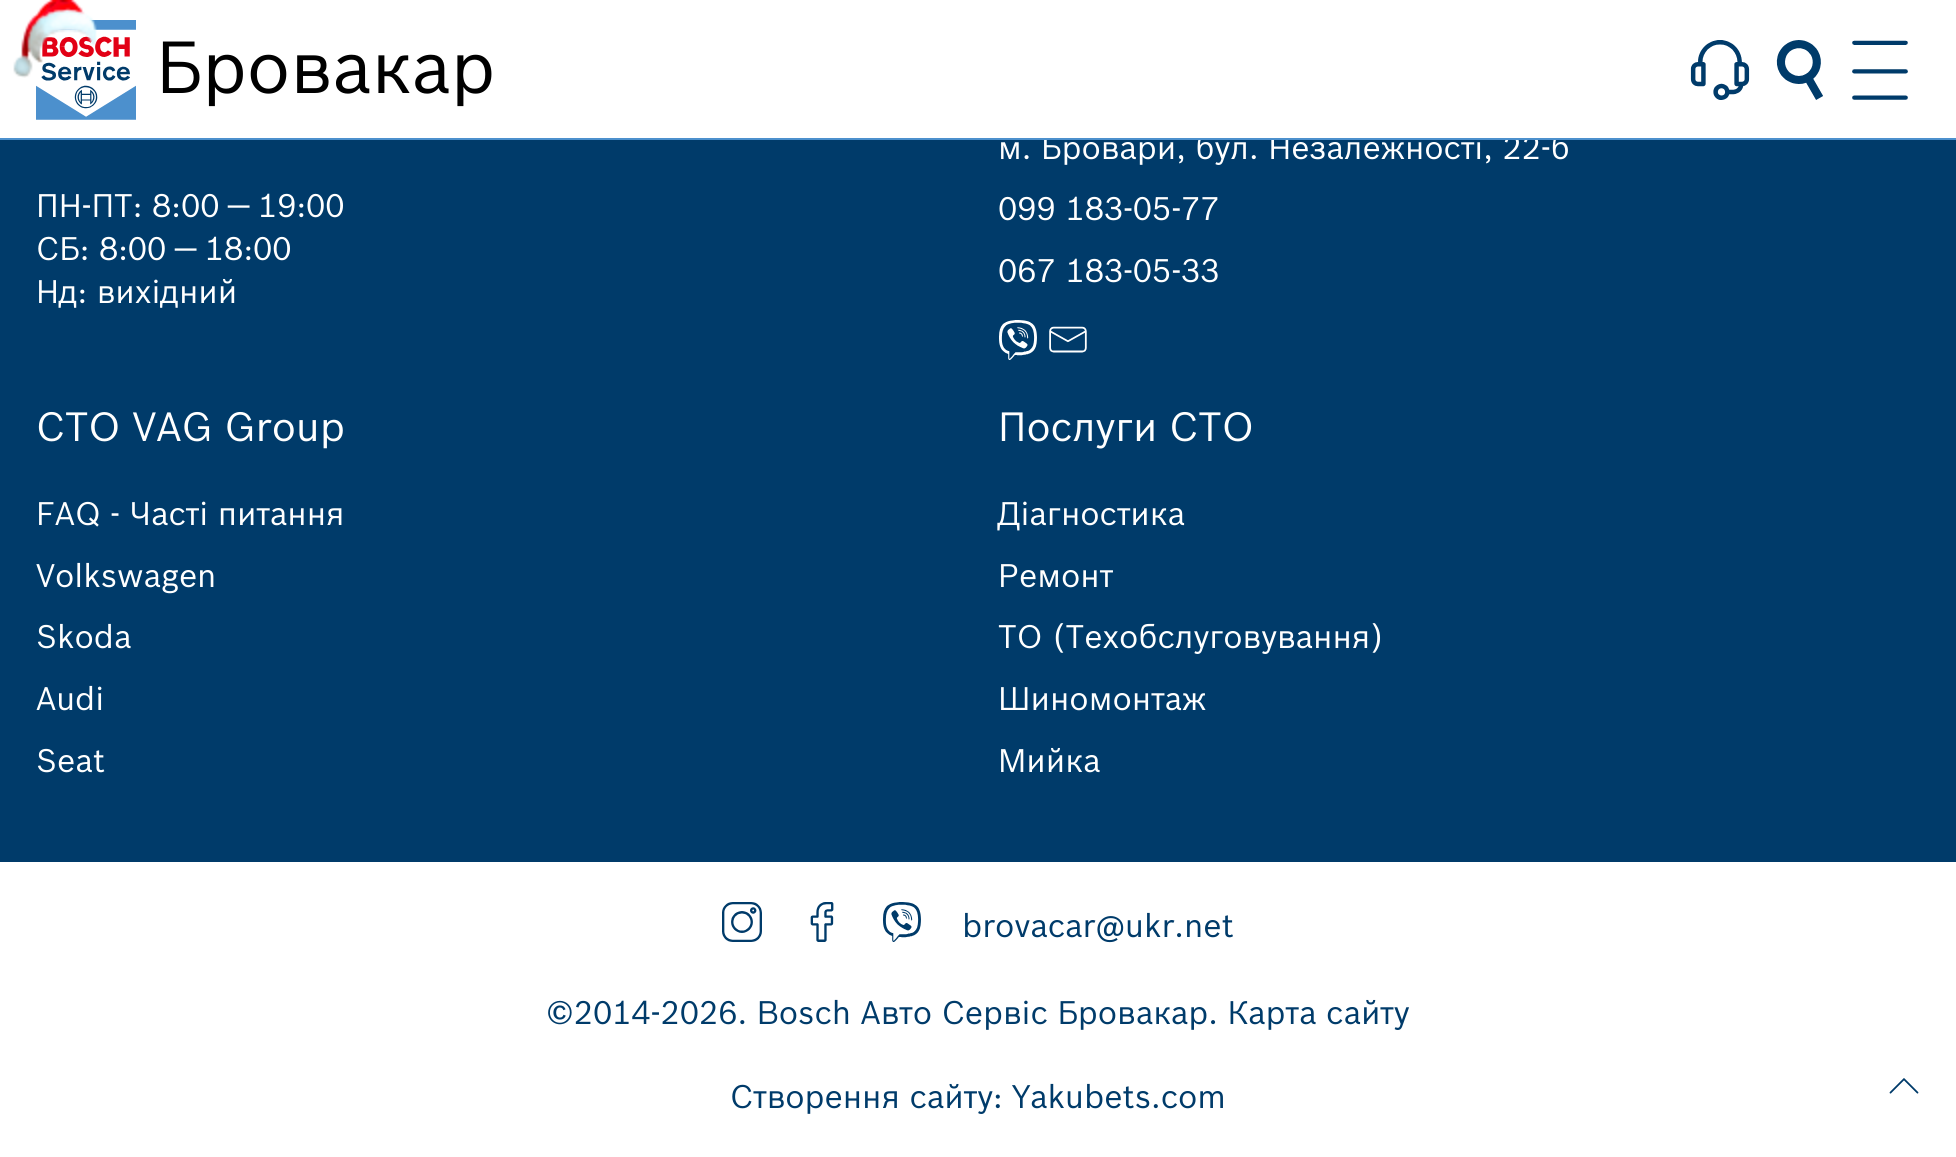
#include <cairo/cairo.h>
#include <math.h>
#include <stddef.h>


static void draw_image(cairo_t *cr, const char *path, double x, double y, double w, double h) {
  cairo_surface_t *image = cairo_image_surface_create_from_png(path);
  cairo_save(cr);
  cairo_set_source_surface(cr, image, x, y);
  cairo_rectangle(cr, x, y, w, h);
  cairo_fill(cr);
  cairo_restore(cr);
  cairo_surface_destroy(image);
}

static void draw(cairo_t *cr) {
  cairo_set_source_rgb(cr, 0, 59 / 255.0, 106 / 255.0);
  cairo_paint(cr);
  cairo_set_source_rgb(cr, 1, 1, 1);
  cairo_rectangle(cr, 0, 0, 1956, 138);
  cairo_fill(cr);
  draw_image(cr, "images/2.png", 36, 20, 100, 100);
  draw_image(cr, "images/1.png", 13, 0, 84, 78);
  draw_image(cr, "images/3.png", 1690, 40, 60, 60);
  draw_image(cr, "images/4.png", 1776, 40, 47, 60);
  draw_image(cr, "images/5.png", 1852, 40, 56, 60);
  draw_image(cr, "images/6.png", 999, 320, 38, 40);
  draw_image(cr, "images/7.png", 1049, 326, 38, 27);
  cairo_rectangle(cr, 0, 862, 1956, 295);
  cairo_fill(cr);
  draw_image(cr, "images/8.png", 722, 902, 40, 40);
  draw_image(cr, "images/9.png", 810, 902, 24, 40);
  draw_image(cr, "images/10.png", 883, 902, 38, 40);
  draw_image(cr, "images/11.png", 1889, 1078, 30, 16);
  cairo_select_font_face(cr, "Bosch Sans", CAIRO_FONT_SLANT_NORMAL, CAIRO_FONT_WEIGHT_NORMAL);
  cairo_set_font_size(cr, 72);
  cairo_set_source_rgb(cr, 0, 0, 0);
  cairo_move_to(cr, 156, 93);
  cairo_show_text(cr, "Бровакар");
  cairo_set_font_size(cr, 32);
  cairo_set_source_rgb(cr, 1, 1, 1);
  cairo_move_to(cr, 36, 217);
  cairo_show_text(cr, "ПН-ПТ: 8:00 — 19:00");
  cairo_move_to(cr, 36, 260);
  cairo_show_text(cr, "СБ: 8:00 — 18:00");
  cairo_move_to(cr, 36, 303);
  cairo_show_text(cr, "Нд: вихідний");
  cairo_move_to(cr, 998, 159);
  cairo_show_text(cr, "м. Бровари, бул. Незалежності, 22-б");
  cairo_set_source_rgb(cr, 76 / 255.0, 144 / 255.0, 205 / 255.0);
  cairo_rectangle(cr, 0, 138, 1956, 2);
  cairo_fill(cr);
  cairo_set_source_rgb(cr, 1, 1, 1);
  cairo_move_to(cr, 998, 220);
  cairo_show_text(cr, "099 183-05-77");
  cairo_move_to(cr, 998, 282);
  cairo_show_text(cr, "067 183-05-33");
  cairo_set_font_size(cr, 40);
  cairo_move_to(cr, 36, 441);
  cairo_show_text(cr, "СТО VAG Group");
  cairo_set_font_size(cr, 32);
  cairo_move_to(cr, 36, 525);
  cairo_show_text(cr, "FAQ - Часті питання");
  cairo_move_to(cr, 36, 587);
  cairo_show_text(cr, "Volkswagen");
  cairo_move_to(cr, 36, 648);
  cairo_show_text(cr, "Skoda");
  cairo_move_to(cr, 36, 710);
  cairo_show_text(cr, "Audi");
  cairo_move_to(cr, 36, 772);
  cairo_show_text(cr, "Seat");
  cairo_set_font_size(cr, 40);
  cairo_move_to(cr, 998, 441);
  cairo_show_text(cr, "Послуги СТО");
  cairo_set_font_size(cr, 32);
  cairo_move_to(cr, 998, 525);
  cairo_show_text(cr, "Діагностика");
  cairo_move_to(cr, 998, 587);
  cairo_show_text(cr, "Ремонт");
  cairo_move_to(cr, 998, 648);
  cairo_show_text(cr, "ТО (Техобслуговування)");
  cairo_move_to(cr, 998, 710);
  cairo_show_text(cr, "Шиномонтаж");
  cairo_move_to(cr, 998, 772);
  cairo_show_text(cr, "Мийка");
  cairo_set_source_rgb(cr, 0, 59 / 255.0, 106 / 255.0);
  cairo_move_to(cr, 962, 937);
  cairo_show_text(cr, "brovacar@ukr.net");
  cairo_move_to(cr, 546, 1024);
  cairo_show_text(cr, "©2014-2026. Bosch Авто Сервіс Бровакар. Карта сайту");
  cairo_move_to(cr, 730, 1108);
  cairo_show_text(cr, "Створення сайту: Yakubets.com");
}

int main(void) {
  cairo_surface_t *surface = cairo_image_surface_create(CAIRO_FORMAT_RGB24, 1956, 1157);
  cairo_t *cr = cairo_create(surface);
  cairo_font_options_t *options = cairo_font_options_create();
  cairo_font_options_set_hint_metrics(options, CAIRO_HINT_METRICS_OFF);
  cairo_font_options_set_hint_style(options, CAIRO_HINT_STYLE_NONE);
  cairo_set_font_options(cr, options);
  cairo_set_miter_limit(cr, 4);
  draw(cr);
  cairo_surface_write_to_png(surface, "out.png");
  cairo_font_options_destroy(options);
  cairo_destroy(cr);
  cairo_surface_destroy(surface);
  return 0;
}
